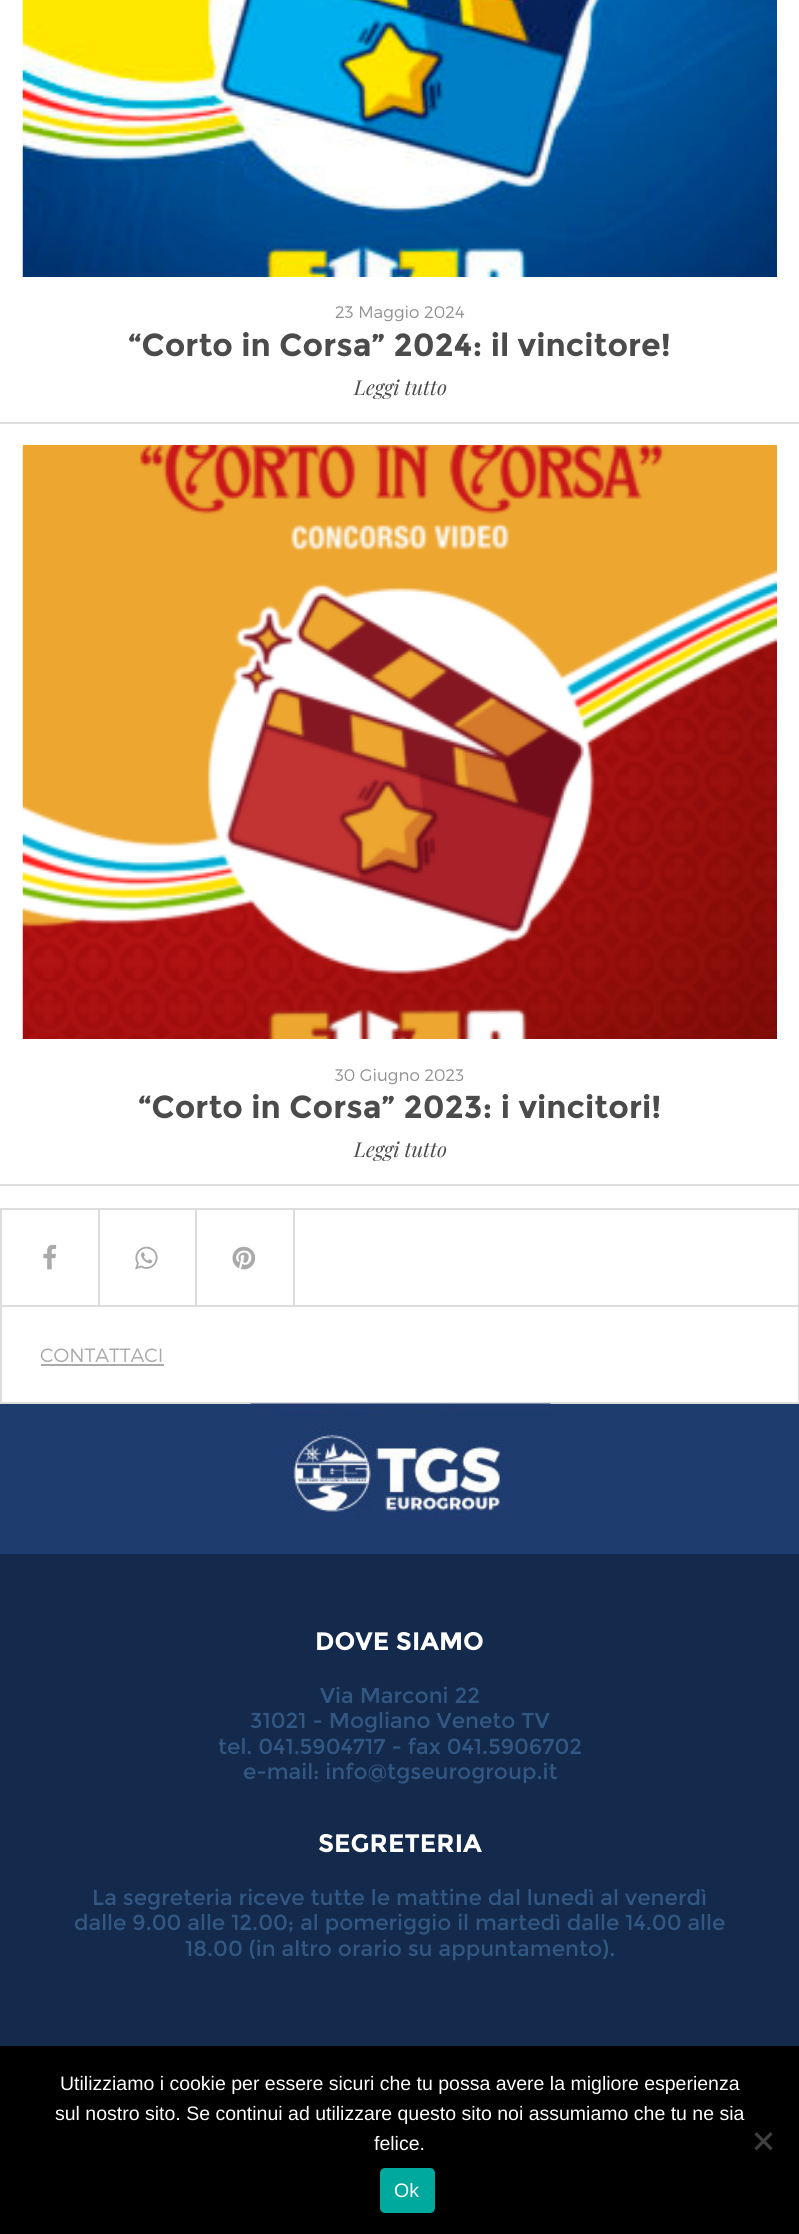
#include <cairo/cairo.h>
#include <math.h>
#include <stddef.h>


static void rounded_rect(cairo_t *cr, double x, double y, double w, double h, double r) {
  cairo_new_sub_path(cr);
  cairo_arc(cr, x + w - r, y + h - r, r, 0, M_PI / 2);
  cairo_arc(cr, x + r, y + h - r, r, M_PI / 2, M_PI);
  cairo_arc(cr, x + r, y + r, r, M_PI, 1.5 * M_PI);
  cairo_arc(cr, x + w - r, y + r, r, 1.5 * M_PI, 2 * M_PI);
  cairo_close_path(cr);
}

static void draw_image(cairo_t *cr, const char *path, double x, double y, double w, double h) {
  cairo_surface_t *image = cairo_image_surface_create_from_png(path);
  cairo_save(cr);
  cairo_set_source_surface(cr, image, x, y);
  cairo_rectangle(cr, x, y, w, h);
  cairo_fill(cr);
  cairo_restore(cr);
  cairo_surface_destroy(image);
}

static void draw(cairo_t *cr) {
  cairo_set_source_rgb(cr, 1, 1, 1);
  cairo_paint(cr);
  cairo_set_source_rgb(cr, 221 / 255.0, 221 / 255.0, 221 / 255.0);
  cairo_rectangle(cr, 0, 422, 799, 2);
  cairo_fill(cr);
  draw_image(cr, "images/1.png", 22, 0, 755, 277);
  cairo_rectangle(cr, 0, 1184, 799, 2);
  cairo_fill(cr);
  draw_image(cr, "images/2.png", 22, 445, 755, 594);
  cairo_rectangle(cr, 1, 1209, 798, 194);
  cairo_stroke(cr);
  cairo_rectangle(cr, 2, 1305, 796, 2);
  cairo_fill(cr);
  cairo_rectangle(cr, 98, 1209, 2, 96);
  cairo_fill(cr);
  draw_image(cr, "images/3.png", 43, 1244, 14, 26);
  cairo_rectangle(cr, 195, 1209, 2, 96);
  cairo_fill(cr);
  draw_image(cr, "images/4.png", 135, 1246, 23, 24);
  cairo_rectangle(cr, 293, 1209, 2, 96);
  cairo_fill(cr);
  draw_image(cr, "images/5.png", 232, 1246, 24, 24);
  cairo_set_source_rgb(cr, 170 / 255.0, 170 / 255.0, 170 / 255.0);
  cairo_rectangle(cr, 41, 1364, 123, 2);
  cairo_fill(cr);
  cairo_set_source_rgb(cr, 30 / 255.0, 60 / 255.0, 110 / 255.0);
  cairo_rectangle(cr, 0, 1404, 799, 150);
  cairo_fill(cr);
  draw_image(cr, "images/6.png", 250, 1403, 301, 120);
  cairo_set_source_rgb(cr, 19 / 255.0, 42 / 255.0, 76 / 255.0);
  cairo_rectangle(cr, 0, 1554, 799, 492);
  cairo_fill(cr);
  cairo_set_source_rgb(cr, 0, 0, 0);
  cairo_rectangle(cr, 0, 2046, 799, 188);
  cairo_fill(cr);
  cairo_set_source_rgb(cr, 64 / 255.0, 64 / 255.0, 64 / 255.0);
  cairo_new_path(cr);
  cairo_move_to(cr, 770.5, 2132);
  cairo_line_to(cr, 772.5, 2134.5);
  cairo_line_to(cr, 756.5, 2150.5);
  cairo_line_to(cr, 754.5, 2148);
  cairo_close_path(cr);
  cairo_fill(cr);
  cairo_new_path(cr);
  cairo_move_to(cr, 754.5, 2134.5);
  cairo_line_to(cr, 756.5, 2132);
  cairo_line_to(cr, 772.5, 2148);
  cairo_line_to(cr, 770.5, 2150.5);
  cairo_close_path(cr);
  cairo_fill(cr);
  cairo_set_source_rgb(cr, 0, 169 / 255.0, 157 / 255.0);
  rounded_rect(cr, 380, 2168, 55, 45, 5);
  cairo_fill(cr);
  cairo_select_font_face(cr, "Montserrat Light", CAIRO_FONT_SLANT_NORMAL, CAIRO_FONT_WEIGHT_NORMAL);
  cairo_set_font_size(cr, 16.75);
  cairo_set_source_rgb(cr, 144 / 255.0, 144 / 255.0, 144 / 255.0);
  cairo_move_to(cr, 335, 318);
  cairo_show_text(cr, "23 Maggio 2024");
  cairo_select_font_face(cr, "Montserrat", CAIRO_FONT_SLANT_NORMAL, CAIRO_FONT_WEIGHT_BOLD);
  cairo_set_font_size(cr, 31.75);
  cairo_set_source_rgb(cr, 75 / 255.0, 75 / 255.0, 75 / 255.0);
  cairo_move_to(cr, 128, 356);
  cairo_show_text(cr, "“Corto in Corsa” 2024: il vincitore!");
  cairo_select_font_face(cr, "Playfair Display", CAIRO_FONT_SLANT_ITALIC, CAIRO_FONT_WEIGHT_NORMAL);
  cairo_set_font_size(cr, 20.5);
  cairo_move_to(cr, 354, 395);
  cairo_show_text(cr, "Leggi tutto");
  cairo_select_font_face(cr, "Montserrat Light", CAIRO_FONT_SLANT_NORMAL, CAIRO_FONT_WEIGHT_NORMAL);
  cairo_set_font_size(cr, 16.75);
  cairo_set_source_rgb(cr, 144 / 255.0, 144 / 255.0, 144 / 255.0);
  cairo_move_to(cr, 335, 1081);
  cairo_show_text(cr, "30 Giugno 2023");
  cairo_select_font_face(cr, "Montserrat", CAIRO_FONT_SLANT_NORMAL, CAIRO_FONT_WEIGHT_BOLD);
  cairo_set_font_size(cr, 31.75);
  cairo_set_source_rgb(cr, 75 / 255.0, 75 / 255.0, 75 / 255.0);
  cairo_move_to(cr, 138, 1118);
  cairo_show_text(cr, "“Corto in Corsa” 2023: i vincitori!");
  cairo_select_font_face(cr, "Playfair Display", CAIRO_FONT_SLANT_ITALIC, CAIRO_FONT_WEIGHT_NORMAL);
  cairo_set_font_size(cr, 20.5);
  cairo_move_to(cr, 354, 1157);
  cairo_show_text(cr, "Leggi tutto");
  cairo_select_font_face(cr, "Montserrat Light", CAIRO_FONT_SLANT_NORMAL, CAIRO_FONT_WEIGHT_NORMAL);
  cairo_set_font_size(cr, 19.25);
  cairo_set_source_rgb(cr, 170 / 255.0, 170 / 255.0, 170 / 255.0);
  cairo_move_to(cr, 40, 1362);
  cairo_show_text(cr, "CONTATTACI");
  cairo_select_font_face(cr, "Montserrat", CAIRO_FONT_SLANT_NORMAL, CAIRO_FONT_WEIGHT_BOLD);
  cairo_set_font_size(cr, 25.25);
  cairo_set_source_rgb(cr, 1, 1, 1);
  cairo_move_to(cr, 315, 1650);
  cairo_show_text(cr, "DOVE SIAMO");
  cairo_select_font_face(cr, "Montserrat", CAIRO_FONT_SLANT_NORMAL, CAIRO_FONT_WEIGHT_NORMAL);
  cairo_set_font_size(cr, 21.6);
  cairo_set_source_rgb(cr, 50 / 255.0, 87 / 255.0, 131 / 255.0);
  cairo_move_to(cr, 320, 1703);
  cairo_show_text(cr, "Via Marconi 22");
  cairo_move_to(cr, 250, 1728);
  cairo_show_text(cr, "31021 - Mogliano Veneto TV");
  cairo_move_to(cr, 218, 1754);
  cairo_show_text(cr, "tel. 041.5904717 - fax 041.5906702");
  cairo_move_to(cr, 243, 1779);
  cairo_show_text(cr, "e-mail: info@tgseurogroup.it");
  cairo_select_font_face(cr, "Montserrat", CAIRO_FONT_SLANT_NORMAL, CAIRO_FONT_WEIGHT_BOLD);
  cairo_set_font_size(cr, 25.25);
  cairo_set_source_rgb(cr, 1, 1, 1);
  cairo_move_to(cr, 318, 1852);
  cairo_show_text(cr, "SEGRETERIA");
  cairo_select_font_face(cr, "Montserrat", CAIRO_FONT_SLANT_NORMAL, CAIRO_FONT_WEIGHT_NORMAL);
  cairo_set_font_size(cr, 21.6);
  cairo_set_source_rgb(cr, 50 / 255.0, 87 / 255.0, 131 / 255.0);
  cairo_move_to(cr, 92, 1905);
  cairo_show_text(cr, "La segreteria riceve tutte le mattine dal lunedì al venerdì");
  cairo_move_to(cr, 74, 1930);
  cairo_show_text(cr, "dalle 9.00 alle 12.00; al pomeriggio il martedì dalle 14.00 alle");
  cairo_move_to(cr, 185, 1956);
  cairo_show_text(cr, "18.00 (in altro orario su appuntamento).");
  cairo_select_font_face(cr, "Liberation Sans", CAIRO_FONT_SLANT_NORMAL, CAIRO_FONT_WEIGHT_NORMAL);
  cairo_set_font_size(cr, 19.5);
  cairo_set_source_rgb(cr, 1, 1, 1);
  cairo_move_to(cr, 60, 2090);
  cairo_show_text(cr, "Utilizziamo i cookie per essere sicuri che tu possa avere la migliore esperienza");
  cairo_move_to(cr, 55, 2120);
  cairo_show_text(cr, "sul nostro sito. Se continui ad utilizzare questo sito noi assumiamo che tu ne sia");
  cairo_move_to(cr, 374, 2150);
  cairo_show_text(cr, "felice.");
  cairo_move_to(cr, 394, 2197);
  cairo_show_text(cr, "Ok");
}

int main(void) {
  cairo_surface_t *surface = cairo_image_surface_create(CAIRO_FORMAT_RGB24, 799, 2234);
  cairo_t *cr = cairo_create(surface);
  cairo_font_options_t *options = cairo_font_options_create();
  cairo_font_options_set_hint_metrics(options, CAIRO_HINT_METRICS_OFF);
  cairo_font_options_set_hint_style(options, CAIRO_HINT_STYLE_NONE);
  cairo_set_font_options(cr, options);
  cairo_set_miter_limit(cr, 4);
  draw(cr);
  cairo_surface_write_to_png(surface, "out.png");
  cairo_font_options_destroy(options);
  cairo_destroy(cr);
  cairo_surface_destroy(surface);
  return 0;
}
